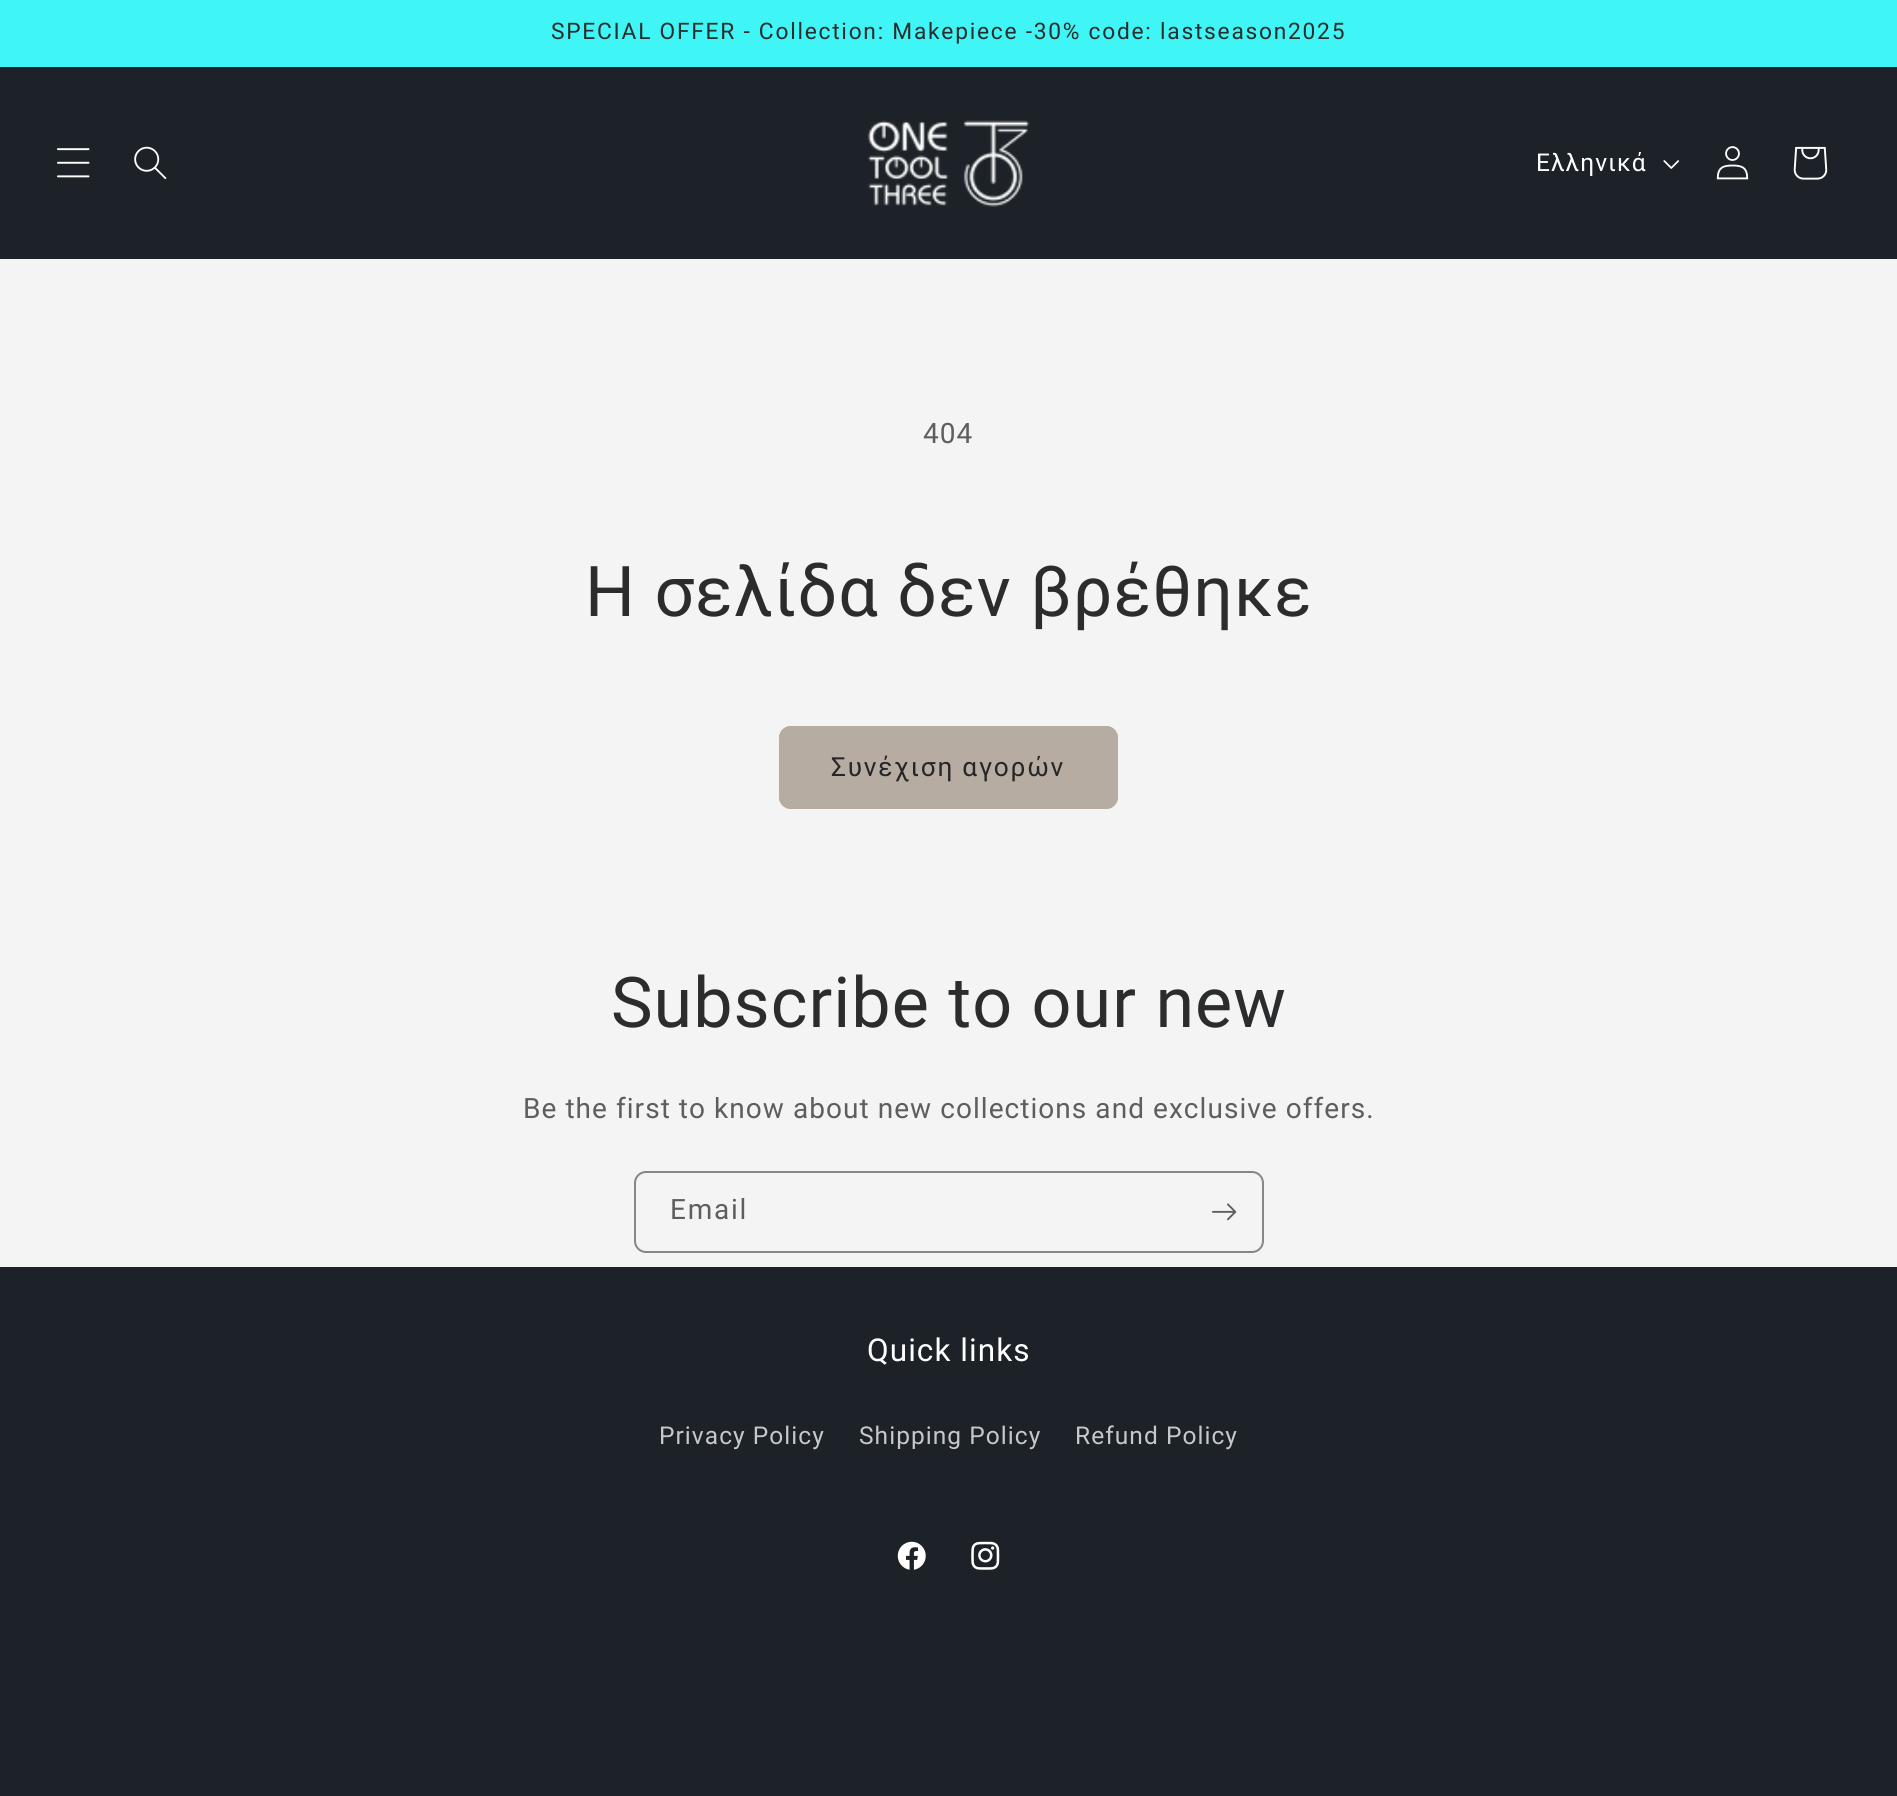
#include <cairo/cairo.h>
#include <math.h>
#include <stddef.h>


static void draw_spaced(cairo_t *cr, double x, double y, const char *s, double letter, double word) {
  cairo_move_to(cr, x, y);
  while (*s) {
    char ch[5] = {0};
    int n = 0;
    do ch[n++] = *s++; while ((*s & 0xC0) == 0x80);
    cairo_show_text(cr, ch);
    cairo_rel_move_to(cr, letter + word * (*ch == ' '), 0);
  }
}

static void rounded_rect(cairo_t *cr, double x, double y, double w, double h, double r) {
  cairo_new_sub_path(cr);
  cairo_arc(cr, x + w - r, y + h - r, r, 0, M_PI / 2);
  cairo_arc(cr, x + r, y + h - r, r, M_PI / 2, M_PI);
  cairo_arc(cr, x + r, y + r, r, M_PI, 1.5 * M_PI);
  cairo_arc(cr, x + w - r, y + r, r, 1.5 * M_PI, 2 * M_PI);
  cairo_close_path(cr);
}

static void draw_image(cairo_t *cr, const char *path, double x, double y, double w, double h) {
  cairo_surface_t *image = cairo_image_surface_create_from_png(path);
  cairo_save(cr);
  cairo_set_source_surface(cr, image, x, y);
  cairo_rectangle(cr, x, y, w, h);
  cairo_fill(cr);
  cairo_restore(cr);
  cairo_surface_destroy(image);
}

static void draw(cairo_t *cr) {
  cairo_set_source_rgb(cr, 244 / 255.0, 244 / 255.0, 244 / 255.0);
  cairo_paint(cr);
  cairo_set_source_rgb(cr, 64 / 255.0, 245 / 255.0, 245 / 255.0);
  cairo_rectangle(cr, 0, 0, 1897, 67);
  cairo_fill(cr);
  cairo_set_source_rgb(cr, 28 / 255.0, 34 / 255.0, 40 / 255.0);
  cairo_rectangle(cr, 0, 67, 1897, 192);
  cairo_fill(cr);
  draw_image(cr, "images/1.png", 57, 148, 33, 30);
  draw_image(cr, "images/2.png", 134, 146, 33, 34);
  draw_image(cr, "images/3.png", 867, 120, 163, 87);
  draw_image(cr, "images/4.png", 1663, 160, 16, 9);
  draw_image(cr, "images/5.png", 1716, 146, 33, 34);
  draw_image(cr, "images/6.png", 1793, 146, 35, 34);
  cairo_set_source_rgb(cr, 183 / 255.0, 172 / 255.0, 162 / 255.0);
  rounded_rect(cr, 779, 726, 339, 83, 12);
  cairo_fill(cr);
  rounded_rect(cr, 780, 727, 337, 81, 11);
  cairo_stroke(cr);
  rounded_rect(cr, 635, 1172, 628, 80, 11);
  cairo_set_source_rgb(cr, 133 / 255.0, 134 / 255.0, 135 / 255.0);
  cairo_stroke(cr);
  draw_image(cr, "images/7.png", 1212, 1203, 25, 18);
  cairo_set_source_rgb(cr, 28 / 255.0, 34 / 255.0, 40 / 255.0);
  cairo_rectangle(cr, 0, 1267, 1897, 529);
  cairo_fill(cr);
  draw_image(cr, "images/8.png", 897, 1541, 29, 29);
  draw_image(cr, "images/9.png", 971, 1541, 29, 29);
  cairo_select_font_face(cr, "Roboto", CAIRO_FONT_SLANT_NORMAL, CAIRO_FONT_WEIGHT_NORMAL);
  cairo_set_font_size(cr, 22.75);
  cairo_set_source_rgb(cr, 43 / 255.0, 44 / 255.0, 45 / 255.0);
  draw_spaced(cr, 551, 39, "SPECIAL OFFER - Collection: Makepiece -30% code: lastseason2025", 1.75, 0);
  cairo_set_font_size(cr, 24.5);
  cairo_set_source_rgb(cr, 1, 1, 1);
  draw_spaced(cr, 1536, 171, "Ελληνικά", 1.05, 0);
  cairo_set_font_size(cr, 28);
  cairo_set_source_rgb(cr, 93 / 255.0, 94 / 255.0, 95 / 255.0);
  draw_spaced(cr, 923, 443, "404", 1.05, 0);
  cairo_set_font_size(cr, 70);
  cairo_set_source_rgb(cr, 43 / 255.0, 44 / 255.0, 45 / 255.0);
  draw_spaced(cr, 585, 616, "Η σελίδα δεν βρέθηκε", 1.05, 0);
  cairo_set_font_size(cr, 26.25);
  cairo_set_source_rgb(cr, 38 / 255.0, 38 / 255.0, 38 / 255.0);
  draw_spaced(cr, 831, 776, "Συνέχιση αγορών", 1.75, 0);
  cairo_set_font_size(cr, 70);
  cairo_set_source_rgb(cr, 43 / 255.0, 44 / 255.0, 45 / 255.0);
  draw_spaced(cr, 611, 1027, "Subscribe to our new", 1.05, 0);
  cairo_set_font_size(cr, 28);
  cairo_set_source_rgb(cr, 93 / 255.0, 94 / 255.0, 95 / 255.0);
  draw_spaced(cr, 523, 1118, "Be the first to know about new collections and exclusive offers.", 1.05, 0);
  draw_spaced(cr, 670, 1219, "Email", 1.75, 0);
  cairo_set_font_size(cr, 31.5);
  cairo_set_source_rgb(cr, 1, 1, 1);
  draw_spaced(cr, 867, 1361, "Quick links", 1.05, 0);
  cairo_set_font_size(cr, 24.5);
  cairo_set_source_rgb(cr, 198 / 255.0, 200 / 255.0, 201 / 255.0);
  draw_spaced(cr, 659, 1444, "Privacy Policy", 1.05, 0);
  draw_spaced(cr, 859, 1444, "Shipping Policy", 1.05, 0);
  draw_spaced(cr, 1075, 1444, "Refund Policy", 1.05, 0);
}

int main(void) {
  cairo_surface_t *surface = cairo_image_surface_create(CAIRO_FORMAT_RGB24, 1897, 1796);
  cairo_t *cr = cairo_create(surface);
  cairo_font_options_t *options = cairo_font_options_create();
  cairo_font_options_set_hint_metrics(options, CAIRO_HINT_METRICS_OFF);
  cairo_font_options_set_hint_style(options, CAIRO_HINT_STYLE_NONE);
  cairo_set_font_options(cr, options);
  cairo_set_miter_limit(cr, 4);
  draw(cr);
  cairo_surface_write_to_png(surface, "out.png");
  cairo_font_options_destroy(options);
  cairo_destroy(cr);
  cairo_surface_destroy(surface);
  return 0;
}
